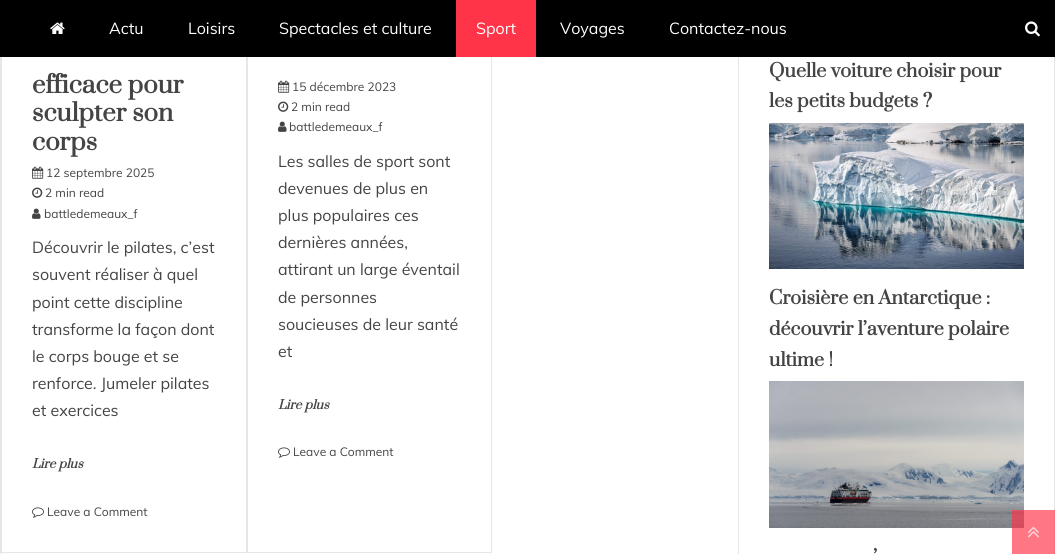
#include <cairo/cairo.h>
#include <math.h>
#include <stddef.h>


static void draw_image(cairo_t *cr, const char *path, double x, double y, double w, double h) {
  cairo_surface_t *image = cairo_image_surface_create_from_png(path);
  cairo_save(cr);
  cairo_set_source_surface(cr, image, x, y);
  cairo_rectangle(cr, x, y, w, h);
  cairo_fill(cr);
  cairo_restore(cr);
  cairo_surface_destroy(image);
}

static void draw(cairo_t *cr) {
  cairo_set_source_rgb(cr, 1, 1, 1);
  cairo_paint(cr);
  cairo_rectangle(cr, 0.5, -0.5, 1054, 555);
  cairo_set_source_rgb(cr, 230 / 255.0, 230 / 255.0, 230 / 255.0);
  cairo_set_line_width(cr, 1);
  cairo_stroke(cr);
  cairo_rectangle(cr, 1.5, -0.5, 245, 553);
  cairo_stroke(cr);
  cairo_rectangle(cr, 247.5, -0.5, 244, 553);
  cairo_stroke(cr);
  cairo_set_source_rgb(cr, 0, 0, 0);
  cairo_rectangle(cr, 0, 0, 1055, 57);
  cairo_fill(cr);
  draw_image(cr, "images/1.png", 50, 22, 15, 12);
  cairo_set_source_rgb(cr, 1, 52 / 255.0, 72 / 255.0);
  cairo_rectangle(cr, 456, 0, 80, 57);
  cairo_fill(cr);
  draw_image(cr, "images/2.png", 1025, 21, 15, 16);
  draw_image(cr, "images/3.png", 32, 166, 12, 13);
  draw_image(cr, "images/4.png", 32, 187, 11, 11);
  draw_image(cr, "images/5.png", 32, 208, 9, 11);
  draw_image(cr, "images/6.png", 32, 507, 12, 11);
  draw_image(cr, "images/3.png", 278, 80, 12, 13);
  draw_image(cr, "images/4.png", 278, 101, 11, 11);
  draw_image(cr, "images/5.png", 278, 121, 9, 11);
  draw_image(cr, "images/6.png", 278, 447, 12, 11);
  cairo_set_source_rgb(cr, 230 / 255.0, 230 / 255.0, 230 / 255.0);
  cairo_rectangle(cr, 738, 57, 1, 497);
  cairo_fill(cr);
  draw_image(cr, "images/7.png", 769, 123, 255, 146);
  draw_image(cr, "images/8.png", 769, 381, 255, 147);
  cairo_set_source_rgba(cr, 1, 52 / 255.0, 72 / 255.0, 0.67);
  cairo_rectangle(cr, 1012, 510, 43, 44);
  cairo_fill(cr);
  draw_image(cr, "images/9.png", 1027, 526, 12, 12);
  cairo_select_font_face(cr, "Muli", CAIRO_FONT_SLANT_NORMAL, CAIRO_FONT_WEIGHT_NORMAL);
  cairo_set_font_size(cr, 16);
  cairo_set_source_rgb(cr, 1, 1, 1);
  cairo_move_to(cr, 109, 34);
  cairo_show_text(cr, "Actu");
  cairo_move_to(cr, 188, 34);
  cairo_show_text(cr, "Loisirs");
  cairo_move_to(cr, 279, 34);
  cairo_show_text(cr, "Spectacles et culture");
  cairo_move_to(cr, 476, 34);
  cairo_show_text(cr, "Sport");
  cairo_move_to(cr, 560, 34);
  cairo_show_text(cr, "Voyages");
  cairo_move_to(cr, 669, 34);
  cairo_show_text(cr, "Contactez-nous");
  cairo_select_font_face(cr, "Prata", CAIRO_FONT_SLANT_NORMAL, CAIRO_FONT_WEIGHT_BOLD);
  cairo_set_font_size(cr, 24);
  cairo_set_source_rgb(cr, 68 / 255.0, 68 / 255.0, 68 / 255.0);
  cairo_move_to(cr, 32, 93);
  cairo_show_text(cr, "efficace pour");
  cairo_move_to(cr, 32, 121);
  cairo_show_text(cr, "sculpter son");
  cairo_move_to(cr, 32, 150);
  cairo_show_text(cr, "corps");
  cairo_select_font_face(cr, "Muli", CAIRO_FONT_SLANT_NORMAL, CAIRO_FONT_WEIGHT_NORMAL);
  cairo_set_font_size(cr, 12);
  cairo_move_to(cr, 46, 177);
  cairo_show_text(cr, "12 septembre 2025");
  cairo_move_to(cr, 45, 197);
  cairo_show_text(cr, "2 min read");
  cairo_move_to(cr, 44, 218);
  cairo_show_text(cr, "battledemeaux_f");
  cairo_set_font_size(cr, 16);
  cairo_move_to(cr, 32, 253);
  cairo_show_text(cr, "Découvrir le pilates, c’est");
  cairo_move_to(cr, 32, 280);
  cairo_show_text(cr, "souvent réaliser à quel");
  cairo_move_to(cr, 32, 308);
  cairo_show_text(cr, "point cette discipline");
  cairo_move_to(cr, 32, 335);
  cairo_show_text(cr, "transforme la façon dont");
  cairo_move_to(cr, 32, 362);
  cairo_show_text(cr, "le corps bouge et se");
  cairo_move_to(cr, 32, 389);
  cairo_show_text(cr, "renforce. Jumeler pilates");
  cairo_move_to(cr, 32, 416);
  cairo_show_text(cr, "et exercices");
  cairo_select_font_face(cr, "Prata", CAIRO_FONT_SLANT_ITALIC, CAIRO_FONT_WEIGHT_BOLD);
  cairo_set_font_size(cr, 12);
  cairo_move_to(cr, 32, 468);
  cairo_show_text(cr, "Lire plus");
  cairo_select_font_face(cr, "Muli", CAIRO_FONT_SLANT_NORMAL, CAIRO_FONT_WEIGHT_NORMAL);
  cairo_move_to(cr, 47, 516);
  cairo_show_text(cr, "Leave a Comment");
  cairo_move_to(cr, 292, 91);
  cairo_show_text(cr, "15 décembre 2023");
  cairo_move_to(cr, 291, 111);
  cairo_show_text(cr, "2 min read");
  cairo_move_to(cr, 289, 131);
  cairo_show_text(cr, "battledemeaux_f");
  cairo_set_font_size(cr, 16);
  cairo_move_to(cr, 278, 167);
  cairo_show_text(cr, "Les salles de sport sont");
  cairo_move_to(cr, 278, 194);
  cairo_show_text(cr, "devenues de plus en");
  cairo_move_to(cr, 278, 221);
  cairo_show_text(cr, "plus populaires ces");
  cairo_move_to(cr, 278, 248);
  cairo_show_text(cr, "dernières années,");
  cairo_move_to(cr, 278, 275);
  cairo_show_text(cr, "attirant un large éventail");
  cairo_move_to(cr, 278, 303);
  cairo_show_text(cr, "de personnes");
  cairo_move_to(cr, 278, 330);
  cairo_show_text(cr, "soucieuses de leur santé");
  cairo_move_to(cr, 278, 357);
  cairo_show_text(cr, "et");
  cairo_select_font_face(cr, "Prata", CAIRO_FONT_SLANT_ITALIC, CAIRO_FONT_WEIGHT_BOLD);
  cairo_set_font_size(cr, 12);
  cairo_move_to(cr, 278, 409);
  cairo_show_text(cr, "Lire plus");
  cairo_select_font_face(cr, "Muli", CAIRO_FONT_SLANT_NORMAL, CAIRO_FONT_WEIGHT_NORMAL);
  cairo_move_to(cr, 293, 456);
  cairo_show_text(cr, "Leave a Comment");
  cairo_select_font_face(cr, "Prata", CAIRO_FONT_SLANT_NORMAL, CAIRO_FONT_WEIGHT_BOLD);
  cairo_set_font_size(cr, 18);
  cairo_move_to(cr, 769, 77);
  cairo_show_text(cr, "Quelle voiture choisir pour");
  cairo_move_to(cr, 769, 107);
  cairo_show_text(cr, "les petits budgets ?");
  cairo_move_to(cr, 769, 304);
  cairo_show_text(cr, "Croisière en Antarctique :");
  cairo_move_to(cr, 769, 335);
  cairo_show_text(cr, "découvrir l’aventure polaire");
  cairo_move_to(cr, 769, 366);
  cairo_show_text(cr, "ultime !");
  cairo_move_to(cr, 873, 563);
  cairo_show_text(cr, "’");
}

int main(void) {
  cairo_surface_t *surface = cairo_image_surface_create(CAIRO_FORMAT_RGB24, 1055, 554);
  cairo_t *cr = cairo_create(surface);
  cairo_font_options_t *options = cairo_font_options_create();
  cairo_font_options_set_hint_metrics(options, CAIRO_HINT_METRICS_OFF);
  cairo_font_options_set_hint_style(options, CAIRO_HINT_STYLE_NONE);
  cairo_set_font_options(cr, options);
  cairo_set_miter_limit(cr, 4);
  draw(cr);
  cairo_surface_write_to_png(surface, "out.png");
  cairo_font_options_destroy(options);
  cairo_destroy(cr);
  cairo_surface_destroy(surface);
  return 0;
}
